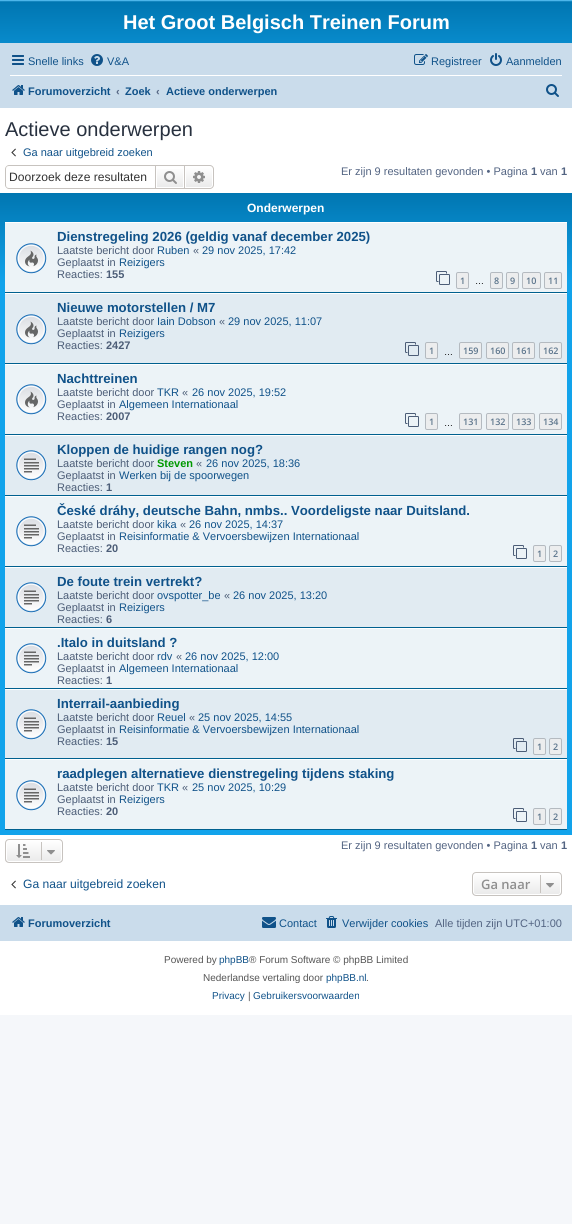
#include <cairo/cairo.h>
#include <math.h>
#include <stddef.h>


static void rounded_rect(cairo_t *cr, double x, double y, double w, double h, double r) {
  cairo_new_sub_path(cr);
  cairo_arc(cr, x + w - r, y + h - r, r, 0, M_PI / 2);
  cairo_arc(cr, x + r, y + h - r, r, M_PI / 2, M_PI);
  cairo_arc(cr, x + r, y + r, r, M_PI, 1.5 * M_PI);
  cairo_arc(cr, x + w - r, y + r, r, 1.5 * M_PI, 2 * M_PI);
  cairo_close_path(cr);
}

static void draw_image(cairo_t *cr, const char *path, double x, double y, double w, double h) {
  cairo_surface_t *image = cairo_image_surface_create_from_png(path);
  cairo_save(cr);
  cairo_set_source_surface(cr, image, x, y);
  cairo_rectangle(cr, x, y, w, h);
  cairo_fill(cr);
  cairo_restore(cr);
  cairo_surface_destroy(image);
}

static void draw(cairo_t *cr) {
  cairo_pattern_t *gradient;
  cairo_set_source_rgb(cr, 245 / 255.0, 247 / 255.0, 250 / 255.0);
  cairo_paint(cr);
  cairo_set_source_rgb(cr, 1, 1, 1);
  cairo_rectangle(cr, 0, 108, 572, 907);
  cairo_fill(cr);
  gradient = cairo_pattern_create_linear(286, 0, 286, 92);
  cairo_pattern_add_color_stop_rgba(gradient, 0, 106 / 255.0, 206 / 255.0, 1, 1);
  cairo_pattern_add_color_stop_rgba(gradient, 0.02, 0, 118 / 255.0, 177 / 255.0, 1);
  cairo_pattern_add_color_stop_rgba(gradient, 1, 18 / 255.0, 163 / 255.0, 235 / 255.0, 1);
  cairo_set_source(cr, gradient);
  cairo_pattern_destroy(gradient);
  cairo_rectangle(cr, 0, 0, 572, 43);
  cairo_fill(cr);
  cairo_set_source_rgb(cr, 202 / 255.0, 220 / 255.0, 235 / 255.0);
  cairo_rectangle(cr, 0, 43, 572, 65);
  cairo_fill(cr);
  draw_image(cr, "images/1.png", 12, 55, 12, 10);
  draw_image(cr, "images/2.png", 91, 54, 12, 12);
  draw_image(cr, "images/3.png", 414, 54, 14, 11);
  draw_image(cr, "images/4.png", 490, 53, 12, 13);
  cairo_set_source_rgb(cr, 1, 1, 1);
  cairo_rectangle(cr, 10, 75, 552, 1);
  cairo_fill(cr);
  draw_image(cr, "images/5.png", 12, 85, 13, 10);
  draw_image(cr, "images/6.png", 546, 84, 13, 13);
  draw_image(cr, "images/7.png", 11, 148, 5, 9);
  cairo_set_source_rgb(cr, 199 / 255.0, 195 / 255.0, 191 / 255.0);
  cairo_set_fill_rule(cr, CAIRO_FILL_RULE_EVEN_ODD);
  cairo_new_path(cr);
  cairo_move_to(cr, 9, 165);
  cairo_line_to(cr, 155, 165);
  cairo_line_to(cr, 155, 189);
  cairo_line_to(cr, 9, 189);
  cairo_curve_to(cr, 7, 189, 5, 187, 5, 185);
  cairo_line_to(cr, 5, 169);
  cairo_curve_to(cr, 5, 167, 7, 165, 9, 165);
  cairo_close_path(cr);
  cairo_move_to(cr, 9, 166);
  cairo_line_to(cr, 155, 166);
  cairo_line_to(cr, 155, 188);
  cairo_line_to(cr, 9, 188);
  cairo_curve_to(cr, 7, 188, 6, 187, 6, 185);
  cairo_line_to(cr, 6, 169);
  cairo_curve_to(cr, 6, 167, 7, 166, 9, 166);
  cairo_close_path(cr);
  cairo_fill(cr);
  gradient = cairo_pattern_create_linear(170, 166, 170, 188);
  cairo_pattern_add_color_stop_rgba(gradient, 0, 1, 1, 1, 1);
  cairo_pattern_add_color_stop_rgba(gradient, 1, 233 / 255.0, 233 / 255.0, 233 / 255.0, 1);
  cairo_set_source(cr, gradient);
  cairo_pattern_destroy(gradient);
  cairo_rectangle(cr, 157, 169, 26, 18);
  cairo_fill(cr);
  cairo_rectangle(cr, 155.5, 165.5, 29, 23);
  cairo_set_source_rgb(cr, 199 / 255.0, 195 / 255.0, 191 / 255.0);
  cairo_set_line_width(cr, 1);
  cairo_stroke(cr);
  draw_image(cr, "images/8.png", 164, 171, 13, 13);
  gradient = cairo_pattern_create_linear(199, 166, 199, 188);
  cairo_pattern_add_color_stop_rgba(gradient, 0, 1, 1, 1, 1);
  cairo_pattern_add_color_stop_rgba(gradient, 1, 233 / 255.0, 233 / 255.0, 233 / 255.0, 1);
  cairo_set_source(cr, gradient);
  cairo_pattern_destroy(gradient);
  cairo_new_path(cr);
  cairo_move_to(cr, 185.5, 166.5);
  cairo_line_to(cr, 210, 166.5);
  cairo_curve_to(cr, 211.5, 166.5, 212.5, 167.5, 212.5, 169);
  cairo_line_to(cr, 212.5, 185);
  cairo_curve_to(cr, 212.5, 186.5, 211.5, 187.5, 210, 187.5);
  cairo_line_to(cr, 185.5, 187.5);
  cairo_close_path(cr);
  cairo_fill_preserve(cr);
  cairo_set_source_rgb(cr, 1, 1, 1);
  cairo_stroke(cr);
  cairo_set_source_rgb(cr, 199 / 255.0, 195 / 255.0, 191 / 255.0);
  cairo_new_path(cr);
  cairo_move_to(cr, 185, 165);
  cairo_line_to(cr, 210, 165);
  cairo_curve_to(cr, 212, 165, 214, 167, 214, 169);
  cairo_line_to(cr, 214, 185);
  cairo_curve_to(cr, 214, 187, 212, 189, 210, 189);
  cairo_line_to(cr, 185, 189);
  cairo_close_path(cr);
  cairo_move_to(cr, 185, 166);
  cairo_line_to(cr, 210, 166);
  cairo_curve_to(cr, 211.5, 166, 213, 167.5, 213, 169);
  cairo_line_to(cr, 213, 185);
  cairo_curve_to(cr, 213, 186.5, 211.5, 188, 210, 188);
  cairo_line_to(cr, 185, 188);
  cairo_close_path(cr);
  cairo_fill(cr);
  draw_image(cr, "images/9.png", 193, 171, 12, 12);
  gradient = cairo_pattern_create_linear(286, 193, 286, 835);
  cairo_pattern_add_color_stop_rgba(gradient, 0, 106 / 255.0, 206 / 255.0, 1, 1);
  cairo_pattern_add_color_stop_rgba(gradient, 0, 0, 118 / 255.0, 177 / 255.0, 1);
  cairo_pattern_add_color_stop_rgba(gradient, 0.14, 18 / 255.0, 163 / 255.0, 235 / 255.0, 1);
  cairo_pattern_add_color_stop_rgba(gradient, 1, 18 / 255.0, 163 / 255.0, 235 / 255.0, 1);
  cairo_set_source(cr, gradient);
  cairo_pattern_destroy(gradient);
  cairo_rectangle(cr, 0, 193, 572, 642);
  cairo_fill(cr);
  cairo_set_source_rgb(cr, 236 / 255.0, 243 / 255.0, 247 / 255.0);
  cairo_rectangle(cr, 5, 223, 562, 69);
  cairo_fill(cr);
  cairo_set_source_rgb(cr, 1, 1, 1);
  cairo_rectangle(cr, 5, 222, 562, 1);
  cairo_fill(cr);
  cairo_set_source_rgb(cr, 0, 96 / 255.0, 143 / 255.0);
  cairo_rectangle(cr, 5, 292, 562, 1);
  cairo_fill(cr);
  draw_image(cr, "images/10.png", 16, 243, 31, 31);
  draw_image(cr, "images/11.png", 436, 271, 14, 14);
  cairo_set_source_rgb(cr, 236 / 255.0, 237 / 255.0, 238 / 255.0);
  rounded_rect(cr, 456.5, 272.5, 12, 16, 1.5);
  cairo_fill_preserve(cr);
  cairo_set_source_rgb(cr, 180 / 255.0, 186 / 255.0, 192 / 255.0);
  cairo_stroke(cr);
  cairo_set_source_rgb(cr, 236 / 255.0, 237 / 255.0, 238 / 255.0);
  rounded_rect(cr, 490.5, 272.5, 12, 16, 1.5);
  cairo_fill_preserve(cr);
  cairo_set_source_rgb(cr, 180 / 255.0, 186 / 255.0, 192 / 255.0);
  cairo_stroke(cr);
  cairo_set_source_rgb(cr, 236 / 255.0, 237 / 255.0, 238 / 255.0);
  rounded_rect(cr, 506.5, 272.5, 12, 16, 1.5);
  cairo_fill_preserve(cr);
  cairo_set_source_rgb(cr, 180 / 255.0, 186 / 255.0, 192 / 255.0);
  cairo_stroke(cr);
  cairo_set_source_rgb(cr, 236 / 255.0, 237 / 255.0, 238 / 255.0);
  rounded_rect(cr, 522.5, 272.5, 18, 16, 1.5);
  cairo_fill_preserve(cr);
  cairo_set_source_rgb(cr, 180 / 255.0, 186 / 255.0, 192 / 255.0);
  cairo_stroke(cr);
  cairo_set_source_rgb(cr, 236 / 255.0, 237 / 255.0, 238 / 255.0);
  rounded_rect(cr, 544.5, 272.5, 17, 16, 1.5);
  cairo_fill_preserve(cr);
  cairo_set_source_rgb(cr, 180 / 255.0, 186 / 255.0, 192 / 255.0);
  cairo_stroke(cr);
  cairo_set_source_rgb(cr, 225 / 255.0, 235 / 255.0, 242 / 255.0);
  cairo_rectangle(cr, 5, 294, 562, 69);
  cairo_fill(cr);
  cairo_set_source_rgb(cr, 1, 1, 1);
  cairo_rectangle(cr, 5, 293, 562, 1);
  cairo_fill(cr);
  cairo_set_source_rgb(cr, 0, 96 / 255.0, 143 / 255.0);
  cairo_rectangle(cr, 5, 363, 562, 1);
  cairo_fill(cr);
  draw_image(cr, "images/12.png", 16, 314, 31, 31);
  draw_image(cr, "images/13.png", 405, 342, 14, 14);
  cairo_set_source_rgb(cr, 236 / 255.0, 237 / 255.0, 238 / 255.0);
  rounded_rect(cr, 425.5, 342.5, 12, 16, 1.5);
  cairo_fill_preserve(cr);
  cairo_set_source_rgb(cr, 180 / 255.0, 186 / 255.0, 192 / 255.0);
  cairo_stroke(cr);
  cairo_set_source_rgb(cr, 236 / 255.0, 237 / 255.0, 238 / 255.0);
  rounded_rect(cr, 459.5, 342.5, 22, 16, 1.5);
  cairo_fill_preserve(cr);
  cairo_set_source_rgb(cr, 180 / 255.0, 186 / 255.0, 192 / 255.0);
  cairo_stroke(cr);
  cairo_set_source_rgb(cr, 236 / 255.0, 237 / 255.0, 238 / 255.0);
  rounded_rect(cr, 486.5, 342.5, 22, 16, 1.5);
  cairo_fill_preserve(cr);
  cairo_set_source_rgb(cr, 180 / 255.0, 186 / 255.0, 192 / 255.0);
  cairo_stroke(cr);
  cairo_set_source_rgb(cr, 236 / 255.0, 237 / 255.0, 238 / 255.0);
  rounded_rect(cr, 512.5, 342.5, 22, 16, 1.5);
  cairo_fill_preserve(cr);
  cairo_set_source_rgb(cr, 180 / 255.0, 186 / 255.0, 192 / 255.0);
  cairo_stroke(cr);
  cairo_set_source_rgb(cr, 236 / 255.0, 237 / 255.0, 238 / 255.0);
  rounded_rect(cr, 539.5, 342.5, 22, 16, 1.5);
  cairo_fill_preserve(cr);
  cairo_set_source_rgb(cr, 180 / 255.0, 186 / 255.0, 192 / 255.0);
  cairo_stroke(cr);
  cairo_set_source_rgb(cr, 236 / 255.0, 243 / 255.0, 247 / 255.0);
  cairo_rectangle(cr, 5, 365, 562, 69);
  cairo_fill(cr);
  cairo_set_source_rgb(cr, 1, 1, 1);
  cairo_rectangle(cr, 5, 364, 562, 1);
  cairo_fill(cr);
  cairo_set_source_rgb(cr, 0, 96 / 255.0, 143 / 255.0);
  cairo_rectangle(cr, 5, 434, 562, 1);
  cairo_fill(cr);
  draw_image(cr, "images/10.png", 16, 384, 31, 31);
  draw_image(cr, "images/11.png", 405, 413, 14, 14);
  cairo_set_source_rgb(cr, 236 / 255.0, 237 / 255.0, 238 / 255.0);
  rounded_rect(cr, 425.5, 413.5, 12, 16, 1.5);
  cairo_fill_preserve(cr);
  cairo_set_source_rgb(cr, 180 / 255.0, 186 / 255.0, 192 / 255.0);
  cairo_stroke(cr);
  cairo_set_source_rgb(cr, 236 / 255.0, 237 / 255.0, 238 / 255.0);
  rounded_rect(cr, 459.5, 413.5, 22, 16, 1.5);
  cairo_fill_preserve(cr);
  cairo_set_source_rgb(cr, 180 / 255.0, 186 / 255.0, 192 / 255.0);
  cairo_stroke(cr);
  cairo_set_source_rgb(cr, 236 / 255.0, 237 / 255.0, 238 / 255.0);
  rounded_rect(cr, 486.5, 413.5, 22, 16, 1.5);
  cairo_fill_preserve(cr);
  cairo_set_source_rgb(cr, 180 / 255.0, 186 / 255.0, 192 / 255.0);
  cairo_stroke(cr);
  cairo_set_source_rgb(cr, 236 / 255.0, 237 / 255.0, 238 / 255.0);
  rounded_rect(cr, 512.5, 413.5, 22, 16, 1.5);
  cairo_fill_preserve(cr);
  cairo_set_source_rgb(cr, 180 / 255.0, 186 / 255.0, 192 / 255.0);
  cairo_stroke(cr);
  cairo_set_source_rgb(cr, 236 / 255.0, 237 / 255.0, 238 / 255.0);
  rounded_rect(cr, 539.5, 413.5, 22, 16, 1.5);
  cairo_fill_preserve(cr);
  cairo_set_source_rgb(cr, 180 / 255.0, 186 / 255.0, 192 / 255.0);
  cairo_stroke(cr);
  cairo_set_source_rgb(cr, 225 / 255.0, 235 / 255.0, 242 / 255.0);
  cairo_rectangle(cr, 5, 436, 562, 59);
  cairo_fill(cr);
  cairo_set_source_rgb(cr, 1, 1, 1);
  cairo_rectangle(cr, 5, 435, 562, 1);
  cairo_fill(cr);
  cairo_set_source_rgb(cr, 0, 96 / 255.0, 143 / 255.0);
  cairo_rectangle(cr, 5, 495, 562, 1);
  cairo_fill(cr);
  draw_image(cr, "images/14.png", 16, 450, 31, 31);
  cairo_set_source_rgb(cr, 236 / 255.0, 243 / 255.0, 247 / 255.0);
  cairo_rectangle(cr, 5, 497, 562, 69);
  cairo_fill(cr);
  cairo_set_source_rgb(cr, 1, 1, 1);
  cairo_rectangle(cr, 5, 496, 562, 1);
  cairo_fill(cr);
  cairo_set_source_rgb(cr, 0, 96 / 255.0, 143 / 255.0);
  cairo_rectangle(cr, 5, 566, 562, 1);
  cairo_fill(cr);
  draw_image(cr, "images/15.png", 16, 516, 31, 31);
  draw_image(cr, "images/11.png", 513, 545, 14, 14);
  cairo_set_source_rgb(cr, 236 / 255.0, 237 / 255.0, 238 / 255.0);
  rounded_rect(cr, 533.5, 545.5, 12, 16, 1.5);
  cairo_fill_preserve(cr);
  cairo_set_source_rgb(cr, 180 / 255.0, 186 / 255.0, 192 / 255.0);
  cairo_stroke(cr);
  cairo_set_source_rgb(cr, 236 / 255.0, 237 / 255.0, 238 / 255.0);
  rounded_rect(cr, 549.5, 545.5, 12, 16, 1.5);
  cairo_fill_preserve(cr);
  cairo_set_source_rgb(cr, 180 / 255.0, 186 / 255.0, 192 / 255.0);
  cairo_stroke(cr);
  cairo_set_source_rgb(cr, 225 / 255.0, 235 / 255.0, 242 / 255.0);
  cairo_rectangle(cr, 5, 568, 562, 59);
  cairo_fill(cr);
  cairo_set_source_rgb(cr, 1, 1, 1);
  cairo_rectangle(cr, 5, 567, 562, 1);
  cairo_fill(cr);
  cairo_set_source_rgb(cr, 0, 96 / 255.0, 143 / 255.0);
  cairo_rectangle(cr, 5, 627, 562, 1);
  cairo_fill(cr);
  draw_image(cr, "images/14.png", 16, 582, 31, 31);
  cairo_set_source_rgb(cr, 236 / 255.0, 243 / 255.0, 247 / 255.0);
  cairo_rectangle(cr, 5, 629, 562, 59);
  cairo_fill(cr);
  cairo_set_source_rgb(cr, 1, 1, 1);
  cairo_rectangle(cr, 5, 628, 562, 1);
  cairo_fill(cr);
  cairo_set_source_rgb(cr, 0, 96 / 255.0, 143 / 255.0);
  cairo_rectangle(cr, 5, 688, 562, 1);
  cairo_fill(cr);
  draw_image(cr, "images/15.png", 16, 643, 31, 31);
  cairo_set_source_rgb(cr, 225 / 255.0, 235 / 255.0, 242 / 255.0);
  cairo_rectangle(cr, 5, 690, 562, 68);
  cairo_fill(cr);
  cairo_set_source_rgb(cr, 1, 1, 1);
  cairo_rectangle(cr, 5, 689, 562, 1);
  cairo_fill(cr);
  cairo_set_source_rgb(cr, 0, 96 / 255.0, 143 / 255.0);
  cairo_rectangle(cr, 5, 758, 562, 1);
  cairo_fill(cr);
  draw_image(cr, "images/14.png", 16, 709, 31, 31);
  draw_image(cr, "images/13.png", 513, 738, 14, 14);
  cairo_set_source_rgb(cr, 236 / 255.0, 237 / 255.0, 238 / 255.0);
  rounded_rect(cr, 533.5, 738.5, 12, 16, 1.5);
  cairo_fill_preserve(cr);
  cairo_set_source_rgb(cr, 180 / 255.0, 186 / 255.0, 192 / 255.0);
  cairo_stroke(cr);
  cairo_set_source_rgb(cr, 236 / 255.0, 237 / 255.0, 238 / 255.0);
  rounded_rect(cr, 549.5, 738.5, 12, 16, 1.5);
  cairo_fill_preserve(cr);
  cairo_set_source_rgb(cr, 180 / 255.0, 186 / 255.0, 192 / 255.0);
  cairo_stroke(cr);
  cairo_set_source_rgb(cr, 236 / 255.0, 243 / 255.0, 247 / 255.0);
  cairo_rectangle(cr, 5, 760, 562, 69);
  cairo_fill(cr);
  cairo_set_source_rgb(cr, 1, 1, 1);
  cairo_rectangle(cr, 5, 759, 562, 1);
  cairo_fill(cr);
  cairo_set_source_rgb(cr, 0, 96 / 255.0, 143 / 255.0);
  cairo_rectangle(cr, 5, 829, 562, 1);
  cairo_fill(cr);
  draw_image(cr, "images/15.png", 16, 780, 31, 31);
  draw_image(cr, "images/11.png", 513, 808, 14, 14);
  cairo_set_source_rgb(cr, 236 / 255.0, 237 / 255.0, 238 / 255.0);
  rounded_rect(cr, 533.5, 808.5, 12, 16, 1.5);
  cairo_fill_preserve(cr);
  cairo_set_source_rgb(cr, 180 / 255.0, 186 / 255.0, 192 / 255.0);
  cairo_stroke(cr);
  cairo_set_source_rgb(cr, 236 / 255.0, 237 / 255.0, 238 / 255.0);
  rounded_rect(cr, 549.5, 808.5, 12, 16, 1.5);
  cairo_fill_preserve(cr);
  cairo_set_source_rgb(cr, 180 / 255.0, 186 / 255.0, 192 / 255.0);
  cairo_stroke(cr);
  cairo_save(cr);
  cairo_set_fill_rule(cr, CAIRO_FILL_RULE_WINDING);
  rounded_rect(cr, 5, 839, 58, 24, 4);
  cairo_clip(cr);
  gradient = cairo_pattern_create_linear(34, 840, 34, 862);
  cairo_pattern_add_color_stop_rgba(gradient, 0, 1, 1, 1, 1);
  cairo_pattern_add_color_stop_rgba(gradient, 1, 233 / 255.0, 233 / 255.0, 233 / 255.0, 1);
  cairo_set_source(cr, gradient);
  cairo_pattern_destroy(gradient);
  cairo_rectangle(cr, 5, 840, 58, 22);
  cairo_fill(cr);
  cairo_restore(cr);
  rounded_rect(cr, 6.5, 840.5, 55, 21, 2.5);
  cairo_set_source_rgb(cr, 1, 1, 1);
  cairo_stroke(cr);
  rounded_rect(cr, 5.5, 839.5, 57, 23, 3.5);
  cairo_set_source_rgb(cr, 199 / 255.0, 195 / 255.0, 191 / 255.0);
  cairo_stroke(cr);
  draw_image(cr, "images/16.png", 16, 844, 14, 14);
  cairo_rectangle(cr, 41, 842, 1, 18);
  cairo_fill(cr);
  draw_image(cr, "images/17.png", 47, 850, 8, 5);
  draw_image(cr, "images/7.png", 11, 880, 5, 9);
  cairo_save(cr);
  cairo_set_fill_rule(cr, CAIRO_FILL_RULE_WINDING);
  rounded_rect(cr, 472, 872, 90, 24, 4);
  cairo_clip(cr);
  gradient = cairo_pattern_create_linear(517, 873, 517, 895);
  cairo_pattern_add_color_stop_rgba(gradient, 0, 1, 1, 1, 1);
  cairo_pattern_add_color_stop_rgba(gradient, 1, 233 / 255.0, 233 / 255.0, 233 / 255.0, 1);
  cairo_set_source(cr, gradient);
  cairo_pattern_destroy(gradient);
  cairo_rectangle(cr, 472, 873, 90, 22);
  cairo_fill(cr);
  cairo_restore(cr);
  rounded_rect(cr, 473.5, 873.5, 87, 21, 2.5);
  cairo_set_source_rgb(cr, 1, 1, 1);
  cairo_stroke(cr);
  rounded_rect(cr, 472.5, 872.5, 89, 23, 3.5);
  cairo_set_source_rgb(cr, 199 / 255.0, 195 / 255.0, 191 / 255.0);
  cairo_stroke(cr);
  cairo_rectangle(cr, 540, 875, 1, 18);
  cairo_fill(cr);
  draw_image(cr, "images/17.png", 546, 883, 8, 5);
  cairo_set_source_rgb(cr, 202 / 255.0, 220 / 255.0, 235 / 255.0);
  cairo_rectangle(cr, 0, 905, 572, 36);
  cairo_fill(cr);
  draw_image(cr, "images/5.png", 12, 917, 13, 10);
  draw_image(cr, "images/18.png", 262, 917, 14, 11);
  draw_image(cr, "images/19.png", 326, 916, 11, 12);
  cairo_select_font_face(cr, "Liberation Sans", CAIRO_FONT_SLANT_NORMAL, CAIRO_FONT_WEIGHT_BOLD);
  cairo_set_font_size(cr, 20);
  cairo_set_source_rgb(cr, 1, 1, 1);
  cairo_move_to(cr, 123, 29);
  cairo_show_text(cr, "Het Groot Belgisch Treinen Forum");
  cairo_select_font_face(cr, "Liberation Sans", CAIRO_FONT_SLANT_NORMAL, CAIRO_FONT_WEIGHT_NORMAL);
  cairo_set_font_size(cr, 11);
  cairo_set_source_rgb(cr, 16 / 255.0, 82 / 255.0, 137 / 255.0);
  cairo_move_to(cr, 28, 65);
  cairo_show_text(cr, "Snelle links");
  cairo_move_to(cr, 107, 65);
  cairo_show_text(cr, "V&A");
  cairo_move_to(cr, 431, 65);
  cairo_show_text(cr, "Registreer");
  cairo_move_to(cr, 506, 65);
  cairo_show_text(cr, "Aanmelden");
  cairo_select_font_face(cr, "Liberation Sans", CAIRO_FONT_SLANT_NORMAL, CAIRO_FONT_WEIGHT_BOLD);
  cairo_move_to(cr, 28, 95);
  cairo_show_text(cr, "Forumoverzicht");
  cairo_set_source_rgb(cr, 83 / 255.0, 100 / 255.0, 130 / 255.0);
  cairo_move_to(cr, 116, 95);
  cairo_show_text(cr, "‹");
  cairo_set_source_rgb(cr, 16 / 255.0, 82 / 255.0, 137 / 255.0);
  cairo_move_to(cr, 125, 95);
  cairo_show_text(cr, "Zoek");
  cairo_set_source_rgb(cr, 83 / 255.0, 100 / 255.0, 130 / 255.0);
  cairo_move_to(cr, 156, 95);
  cairo_show_text(cr, "‹");
  cairo_set_source_rgb(cr, 16 / 255.0, 82 / 255.0, 137 / 255.0);
  cairo_move_to(cr, 166, 95);
  cairo_show_text(cr, "Actieve onderwerpen");
  cairo_select_font_face(cr, "Liberation Sans", CAIRO_FONT_SLANT_NORMAL, CAIRO_FONT_WEIGHT_NORMAL);
  cairo_set_font_size(cr, 20);
  cairo_set_source_rgb(cr, 40 / 255.0, 49 / 255.0, 63 / 255.0);
  cairo_move_to(cr, 5, 136);
  cairo_show_text(cr, "Actieve onderwerpen");
  cairo_set_font_size(cr, 11);
  cairo_set_source_rgb(cr, 16 / 255.0, 82 / 255.0, 137 / 255.0);
  cairo_move_to(cr, 23, 156);
  cairo_show_text(cr, "Ga naar uitgebreid zoeken");
  cairo_set_font_size(cr, 12.1);
  cairo_set_source_rgb(cr, 51 / 255.0, 51 / 255.0, 51 / 255.0);
  cairo_move_to(cr, 9, 181);
  cairo_show_text(cr, "Doorzoek deze resultaten");
  cairo_set_font_size(cr, 11);
  cairo_set_source_rgb(cr, 83 / 255.0, 100 / 255.0, 130 / 255.0);
  cairo_move_to(cr, 341, 175);
  cairo_show_text(cr, "Er zijn 9 resultaten gevonden • Pagina");
  cairo_select_font_face(cr, "Liberation Sans", CAIRO_FONT_SLANT_NORMAL, CAIRO_FONT_WEIGHT_BOLD);
  cairo_move_to(cr, 531, 175);
  cairo_show_text(cr, "1");
  cairo_select_font_face(cr, "Liberation Sans", CAIRO_FONT_SLANT_NORMAL, CAIRO_FONT_WEIGHT_NORMAL);
  cairo_move_to(cr, 540, 175);
  cairo_show_text(cr, "van");
  cairo_select_font_face(cr, "Liberation Sans", CAIRO_FONT_SLANT_NORMAL, CAIRO_FONT_WEIGHT_BOLD);
  cairo_move_to(cr, 561, 175);
  cairo_show_text(cr, "1");
  cairo_set_font_size(cr, 12);
  cairo_set_source_rgb(cr, 1, 1, 1);
  cairo_move_to(cr, 247, 212);
  cairo_show_text(cr, "Onderwerpen");
  cairo_set_font_size(cr, 13.2);
  cairo_set_source_rgb(cr, 16 / 255.0, 82 / 255.0, 137 / 255.0);
  cairo_move_to(cr, 57, 241);
  cairo_show_text(cr, "Dienstregeling 2026 (geldig vanaf december 2025)");
  cairo_select_font_face(cr, "Liberation Sans", CAIRO_FONT_SLANT_NORMAL, CAIRO_FONT_WEIGHT_NORMAL);
  cairo_set_font_size(cr, 11);
  cairo_set_source_rgb(cr, 76 / 255.0, 93 / 255.0, 119 / 255.0);
  cairo_move_to(cr, 57, 254);
  cairo_show_text(cr, "Laatste bericht door");
  cairo_set_source_rgb(cr, 16 / 255.0, 82 / 255.0, 137 / 255.0);
  cairo_move_to(cr, 157, 254);
  cairo_show_text(cr, "Ruben");
  cairo_set_source_rgb(cr, 76 / 255.0, 93 / 255.0, 119 / 255.0);
  cairo_move_to(cr, 193, 254);
  cairo_show_text(cr, "«");
  cairo_set_source_rgb(cr, 16 / 255.0, 82 / 255.0, 137 / 255.0);
  cairo_move_to(cr, 202, 254);
  cairo_show_text(cr, "29 nov 2025, 17:42");
  cairo_set_source_rgb(cr, 76 / 255.0, 93 / 255.0, 119 / 255.0);
  cairo_move_to(cr, 57, 266);
  cairo_show_text(cr, "Geplaatst in");
  cairo_set_source_rgb(cr, 16 / 255.0, 82 / 255.0, 137 / 255.0);
  cairo_move_to(cr, 119, 266);
  cairo_show_text(cr, "Reizigers");
  cairo_set_source_rgb(cr, 76 / 255.0, 93 / 255.0, 119 / 255.0);
  cairo_move_to(cr, 57, 278);
  cairo_show_text(cr, "Reacties:");
  cairo_select_font_face(cr, "Liberation Sans", CAIRO_FONT_SLANT_NORMAL, CAIRO_FONT_WEIGHT_BOLD);
  cairo_move_to(cr, 106, 278);
  cairo_show_text(cr, "155");
  cairo_select_font_face(cr, "Open Sans SemiBold", CAIRO_FONT_SLANT_NORMAL, CAIRO_FONT_WEIGHT_NORMAL);
  cairo_set_font_size(cr, 9);
  cairo_set_source_rgb(cr, 92 / 255.0, 117 / 255.0, 140 / 255.0);
  cairo_move_to(cr, 460, 284);
  cairo_show_text(cr, "1");
  cairo_select_font_face(cr, "Liberation Sans", CAIRO_FONT_SLANT_NORMAL, CAIRO_FONT_WEIGHT_NORMAL);
  cairo_set_source_rgb(cr, 0, 0, 0);
  cairo_move_to(cr, 475, 284);
  cairo_show_text(cr, "…");
  cairo_select_font_face(cr, "Open Sans SemiBold", CAIRO_FONT_SLANT_NORMAL, CAIRO_FONT_WEIGHT_NORMAL);
  cairo_set_source_rgb(cr, 92 / 255.0, 117 / 255.0, 140 / 255.0);
  cairo_move_to(cr, 494, 284);
  cairo_show_text(cr, "8");
  cairo_move_to(cr, 510, 284);
  cairo_show_text(cr, "9");
  cairo_move_to(cr, 526, 284);
  cairo_show_text(cr, "10");
  cairo_move_to(cr, 548, 284);
  cairo_show_text(cr, "11");
  cairo_select_font_face(cr, "Liberation Sans", CAIRO_FONT_SLANT_NORMAL, CAIRO_FONT_WEIGHT_BOLD);
  cairo_set_font_size(cr, 13.2);
  cairo_set_source_rgb(cr, 16 / 255.0, 82 / 255.0, 137 / 255.0);
  cairo_move_to(cr, 57, 312);
  cairo_show_text(cr, "Nieuwe motorstellen / M7");
  cairo_select_font_face(cr, "Liberation Sans", CAIRO_FONT_SLANT_NORMAL, CAIRO_FONT_WEIGHT_NORMAL);
  cairo_set_font_size(cr, 11);
  cairo_set_source_rgb(cr, 76 / 255.0, 93 / 255.0, 119 / 255.0);
  cairo_move_to(cr, 57, 325);
  cairo_show_text(cr, "Laatste bericht door");
  cairo_set_source_rgb(cr, 16 / 255.0, 82 / 255.0, 137 / 255.0);
  cairo_move_to(cr, 157, 325);
  cairo_show_text(cr, "Iain Dobson");
  cairo_set_source_rgb(cr, 76 / 255.0, 93 / 255.0, 119 / 255.0);
  cairo_move_to(cr, 219, 325);
  cairo_show_text(cr, "«");
  cairo_set_source_rgb(cr, 16 / 255.0, 82 / 255.0, 137 / 255.0);
  cairo_move_to(cr, 228, 325);
  cairo_show_text(cr, "29 nov 2025, 11:07");
  cairo_set_source_rgb(cr, 76 / 255.0, 93 / 255.0, 119 / 255.0);
  cairo_move_to(cr, 57, 337);
  cairo_show_text(cr, "Geplaatst in");
  cairo_set_source_rgb(cr, 16 / 255.0, 82 / 255.0, 137 / 255.0);
  cairo_move_to(cr, 119, 337);
  cairo_show_text(cr, "Reizigers");
  cairo_set_source_rgb(cr, 76 / 255.0, 93 / 255.0, 119 / 255.0);
  cairo_move_to(cr, 57, 349);
  cairo_show_text(cr, "Reacties:");
  cairo_select_font_face(cr, "Liberation Sans", CAIRO_FONT_SLANT_NORMAL, CAIRO_FONT_WEIGHT_BOLD);
  cairo_move_to(cr, 106, 349);
  cairo_show_text(cr, "2427");
  cairo_select_font_face(cr, "Open Sans SemiBold", CAIRO_FONT_SLANT_NORMAL, CAIRO_FONT_WEIGHT_NORMAL);
  cairo_set_font_size(cr, 9);
  cairo_set_source_rgb(cr, 92 / 255.0, 117 / 255.0, 140 / 255.0);
  cairo_move_to(cr, 429, 354);
  cairo_show_text(cr, "1");
  cairo_select_font_face(cr, "Liberation Sans", CAIRO_FONT_SLANT_NORMAL, CAIRO_FONT_WEIGHT_NORMAL);
  cairo_set_source_rgb(cr, 0, 0, 0);
  cairo_move_to(cr, 444, 355);
  cairo_show_text(cr, "…");
  cairo_select_font_face(cr, "Open Sans SemiBold", CAIRO_FONT_SLANT_NORMAL, CAIRO_FONT_WEIGHT_NORMAL);
  cairo_set_source_rgb(cr, 92 / 255.0, 117 / 255.0, 140 / 255.0);
  cairo_move_to(cr, 463, 354);
  cairo_show_text(cr, "159");
  cairo_move_to(cr, 490, 354);
  cairo_show_text(cr, "160");
  cairo_move_to(cr, 516, 354);
  cairo_show_text(cr, "161");
  cairo_move_to(cr, 543, 354);
  cairo_show_text(cr, "162");
  cairo_select_font_face(cr, "Liberation Sans", CAIRO_FONT_SLANT_NORMAL, CAIRO_FONT_WEIGHT_BOLD);
  cairo_set_font_size(cr, 13.2);
  cairo_set_source_rgb(cr, 16 / 255.0, 82 / 255.0, 137 / 255.0);
  cairo_move_to(cr, 57, 383);
  cairo_show_text(cr, "Nachttreinen");
  cairo_select_font_face(cr, "Liberation Sans", CAIRO_FONT_SLANT_NORMAL, CAIRO_FONT_WEIGHT_NORMAL);
  cairo_set_font_size(cr, 11);
  cairo_set_source_rgb(cr, 76 / 255.0, 93 / 255.0, 119 / 255.0);
  cairo_move_to(cr, 57, 396);
  cairo_show_text(cr, "Laatste bericht door");
  cairo_set_source_rgb(cr, 16 / 255.0, 82 / 255.0, 137 / 255.0);
  cairo_move_to(cr, 157, 396);
  cairo_show_text(cr, "TKR");
  cairo_set_source_rgb(cr, 76 / 255.0, 93 / 255.0, 119 / 255.0);
  cairo_move_to(cr, 182, 396);
  cairo_show_text(cr, "«");
  cairo_set_source_rgb(cr, 16 / 255.0, 82 / 255.0, 137 / 255.0);
  cairo_move_to(cr, 192, 396);
  cairo_show_text(cr, "26 nov 2025, 19:52");
  cairo_set_source_rgb(cr, 76 / 255.0, 93 / 255.0, 119 / 255.0);
  cairo_move_to(cr, 57, 408);
  cairo_show_text(cr, "Geplaatst in");
  cairo_set_source_rgb(cr, 16 / 255.0, 82 / 255.0, 137 / 255.0);
  cairo_move_to(cr, 119, 408);
  cairo_show_text(cr, "Algemeen Internationaal");
  cairo_set_source_rgb(cr, 76 / 255.0, 93 / 255.0, 119 / 255.0);
  cairo_move_to(cr, 57, 420);
  cairo_show_text(cr, "Reacties:");
  cairo_select_font_face(cr, "Liberation Sans", CAIRO_FONT_SLANT_NORMAL, CAIRO_FONT_WEIGHT_BOLD);
  cairo_move_to(cr, 106, 420);
  cairo_show_text(cr, "2007");
  cairo_select_font_face(cr, "Open Sans SemiBold", CAIRO_FONT_SLANT_NORMAL, CAIRO_FONT_WEIGHT_NORMAL);
  cairo_set_font_size(cr, 9);
  cairo_set_source_rgb(cr, 92 / 255.0, 117 / 255.0, 140 / 255.0);
  cairo_move_to(cr, 429, 425);
  cairo_show_text(cr, "1");
  cairo_select_font_face(cr, "Liberation Sans", CAIRO_FONT_SLANT_NORMAL, CAIRO_FONT_WEIGHT_NORMAL);
  cairo_set_source_rgb(cr, 0, 0, 0);
  cairo_move_to(cr, 444, 426);
  cairo_show_text(cr, "…");
  cairo_select_font_face(cr, "Open Sans SemiBold", CAIRO_FONT_SLANT_NORMAL, CAIRO_FONT_WEIGHT_NORMAL);
  cairo_set_source_rgb(cr, 92 / 255.0, 117 / 255.0, 140 / 255.0);
  cairo_move_to(cr, 463, 425);
  cairo_show_text(cr, "131");
  cairo_move_to(cr, 490, 425);
  cairo_show_text(cr, "132");
  cairo_move_to(cr, 516, 425);
  cairo_show_text(cr, "133");
  cairo_move_to(cr, 543, 425);
  cairo_show_text(cr, "134");
  cairo_select_font_face(cr, "Liberation Sans", CAIRO_FONT_SLANT_NORMAL, CAIRO_FONT_WEIGHT_BOLD);
  cairo_set_font_size(cr, 13.2);
  cairo_set_source_rgb(cr, 16 / 255.0, 82 / 255.0, 137 / 255.0);
  cairo_move_to(cr, 57, 454);
  cairo_show_text(cr, "Kloppen de huidige rangen nog?");
  cairo_select_font_face(cr, "Liberation Sans", CAIRO_FONT_SLANT_NORMAL, CAIRO_FONT_WEIGHT_NORMAL);
  cairo_set_font_size(cr, 11);
  cairo_set_source_rgb(cr, 76 / 255.0, 93 / 255.0, 119 / 255.0);
  cairo_move_to(cr, 57, 467);
  cairo_show_text(cr, "Laatste bericht door");
  cairo_select_font_face(cr, "Liberation Sans", CAIRO_FONT_SLANT_NORMAL, CAIRO_FONT_WEIGHT_BOLD);
  cairo_set_source_rgb(cr, 0, 153 / 255.0, 0);
  cairo_move_to(cr, 157, 467);
  cairo_show_text(cr, "Steven");
  cairo_select_font_face(cr, "Liberation Sans", CAIRO_FONT_SLANT_NORMAL, CAIRO_FONT_WEIGHT_NORMAL);
  cairo_set_source_rgb(cr, 76 / 255.0, 93 / 255.0, 119 / 255.0);
  cairo_move_to(cr, 196, 467);
  cairo_show_text(cr, "«");
  cairo_set_source_rgb(cr, 16 / 255.0, 82 / 255.0, 137 / 255.0);
  cairo_move_to(cr, 206, 467);
  cairo_show_text(cr, "26 nov 2025, 18:36");
  cairo_set_source_rgb(cr, 76 / 255.0, 93 / 255.0, 119 / 255.0);
  cairo_move_to(cr, 57, 479);
  cairo_show_text(cr, "Geplaatst in");
  cairo_set_source_rgb(cr, 16 / 255.0, 82 / 255.0, 137 / 255.0);
  cairo_move_to(cr, 119, 479);
  cairo_show_text(cr, "Werken bij de spoorwegen");
  cairo_set_source_rgb(cr, 76 / 255.0, 93 / 255.0, 119 / 255.0);
  cairo_move_to(cr, 57, 491);
  cairo_show_text(cr, "Reacties:");
  cairo_select_font_face(cr, "Liberation Sans", CAIRO_FONT_SLANT_NORMAL, CAIRO_FONT_WEIGHT_BOLD);
  cairo_move_to(cr, 106, 491);
  cairo_show_text(cr, "1");
  cairo_set_font_size(cr, 13.2);
  cairo_set_source_rgb(cr, 16 / 255.0, 82 / 255.0, 137 / 255.0);
  cairo_move_to(cr, 57, 515);
  cairo_show_text(cr, "České dráhy, deutsche Bahn, nmbs.. Voordeligste naar Duitsland.");
  cairo_select_font_face(cr, "Liberation Sans", CAIRO_FONT_SLANT_NORMAL, CAIRO_FONT_WEIGHT_NORMAL);
  cairo_set_font_size(cr, 11);
  cairo_set_source_rgb(cr, 76 / 255.0, 93 / 255.0, 119 / 255.0);
  cairo_move_to(cr, 57, 528);
  cairo_show_text(cr, "Laatste bericht door");
  cairo_set_source_rgb(cr, 16 / 255.0, 82 / 255.0, 137 / 255.0);
  cairo_move_to(cr, 157, 528);
  cairo_show_text(cr, "kika");
  cairo_set_source_rgb(cr, 76 / 255.0, 93 / 255.0, 119 / 255.0);
  cairo_move_to(cr, 180, 528);
  cairo_show_text(cr, "«");
  cairo_set_source_rgb(cr, 16 / 255.0, 82 / 255.0, 137 / 255.0);
  cairo_move_to(cr, 189, 528);
  cairo_show_text(cr, "26 nov 2025, 14:37");
  cairo_set_source_rgb(cr, 76 / 255.0, 93 / 255.0, 119 / 255.0);
  cairo_move_to(cr, 57, 540);
  cairo_show_text(cr, "Geplaatst in");
  cairo_set_source_rgb(cr, 16 / 255.0, 82 / 255.0, 137 / 255.0);
  cairo_move_to(cr, 119, 540);
  cairo_show_text(cr, "Reisinformatie & Vervoersbewijzen Internationaal");
  cairo_set_source_rgb(cr, 76 / 255.0, 93 / 255.0, 119 / 255.0);
  cairo_move_to(cr, 57, 552);
  cairo_show_text(cr, "Reacties:");
  cairo_select_font_face(cr, "Liberation Sans", CAIRO_FONT_SLANT_NORMAL, CAIRO_FONT_WEIGHT_BOLD);
  cairo_move_to(cr, 106, 552);
  cairo_show_text(cr, "20");
  cairo_select_font_face(cr, "Open Sans SemiBold", CAIRO_FONT_SLANT_NORMAL, CAIRO_FONT_WEIGHT_NORMAL);
  cairo_set_font_size(cr, 9);
  cairo_set_source_rgb(cr, 92 / 255.0, 117 / 255.0, 140 / 255.0);
  cairo_move_to(cr, 537, 557);
  cairo_show_text(cr, "1");
  cairo_move_to(cr, 553, 557);
  cairo_show_text(cr, "2");
  cairo_select_font_face(cr, "Liberation Sans", CAIRO_FONT_SLANT_NORMAL, CAIRO_FONT_WEIGHT_BOLD);
  cairo_set_font_size(cr, 13.2);
  cairo_set_source_rgb(cr, 16 / 255.0, 82 / 255.0, 137 / 255.0);
  cairo_move_to(cr, 57, 586);
  cairo_show_text(cr, "De foute trein vertrekt?");
  cairo_select_font_face(cr, "Liberation Sans", CAIRO_FONT_SLANT_NORMAL, CAIRO_FONT_WEIGHT_NORMAL);
  cairo_set_font_size(cr, 11);
  cairo_set_source_rgb(cr, 76 / 255.0, 93 / 255.0, 119 / 255.0);
  cairo_move_to(cr, 57, 599);
  cairo_show_text(cr, "Laatste bericht door");
  cairo_set_source_rgb(cr, 16 / 255.0, 82 / 255.0, 137 / 255.0);
  cairo_move_to(cr, 157, 599);
  cairo_show_text(cr, "ovspotter_be");
  cairo_set_source_rgb(cr, 76 / 255.0, 93 / 255.0, 119 / 255.0);
  cairo_move_to(cr, 224, 599);
  cairo_show_text(cr, "«");
  cairo_set_source_rgb(cr, 16 / 255.0, 82 / 255.0, 137 / 255.0);
  cairo_move_to(cr, 233, 599);
  cairo_show_text(cr, "26 nov 2025, 13:20");
  cairo_set_source_rgb(cr, 76 / 255.0, 93 / 255.0, 119 / 255.0);
  cairo_move_to(cr, 57, 611);
  cairo_show_text(cr, "Geplaatst in");
  cairo_set_source_rgb(cr, 16 / 255.0, 82 / 255.0, 137 / 255.0);
  cairo_move_to(cr, 119, 611);
  cairo_show_text(cr, "Reizigers");
  cairo_set_source_rgb(cr, 76 / 255.0, 93 / 255.0, 119 / 255.0);
  cairo_move_to(cr, 57, 623);
  cairo_show_text(cr, "Reacties:");
  cairo_select_font_face(cr, "Liberation Sans", CAIRO_FONT_SLANT_NORMAL, CAIRO_FONT_WEIGHT_BOLD);
  cairo_move_to(cr, 106, 623);
  cairo_show_text(cr, "6");
  cairo_set_font_size(cr, 13.2);
  cairo_set_source_rgb(cr, 16 / 255.0, 82 / 255.0, 137 / 255.0);
  cairo_move_to(cr, 57, 647);
  cairo_show_text(cr, ".Italo in duitsland ?");
  cairo_select_font_face(cr, "Liberation Sans", CAIRO_FONT_SLANT_NORMAL, CAIRO_FONT_WEIGHT_NORMAL);
  cairo_set_font_size(cr, 11);
  cairo_set_source_rgb(cr, 76 / 255.0, 93 / 255.0, 119 / 255.0);
  cairo_move_to(cr, 57, 660);
  cairo_show_text(cr, "Laatste bericht door");
  cairo_set_source_rgb(cr, 16 / 255.0, 82 / 255.0, 137 / 255.0);
  cairo_move_to(cr, 157, 660);
  cairo_show_text(cr, "rdv");
  cairo_set_source_rgb(cr, 76 / 255.0, 93 / 255.0, 119 / 255.0);
  cairo_move_to(cr, 176, 660);
  cairo_show_text(cr, "«");
  cairo_set_source_rgb(cr, 16 / 255.0, 82 / 255.0, 137 / 255.0);
  cairo_move_to(cr, 185, 660);
  cairo_show_text(cr, "26 nov 2025, 12:00");
  cairo_set_source_rgb(cr, 76 / 255.0, 93 / 255.0, 119 / 255.0);
  cairo_move_to(cr, 57, 672);
  cairo_show_text(cr, "Geplaatst in");
  cairo_set_source_rgb(cr, 16 / 255.0, 82 / 255.0, 137 / 255.0);
  cairo_move_to(cr, 119, 672);
  cairo_show_text(cr, "Algemeen Internationaal");
  cairo_set_source_rgb(cr, 76 / 255.0, 93 / 255.0, 119 / 255.0);
  cairo_move_to(cr, 57, 684);
  cairo_show_text(cr, "Reacties:");
  cairo_select_font_face(cr, "Liberation Sans", CAIRO_FONT_SLANT_NORMAL, CAIRO_FONT_WEIGHT_BOLD);
  cairo_move_to(cr, 106, 684);
  cairo_show_text(cr, "1");
  cairo_set_font_size(cr, 13.2);
  cairo_set_source_rgb(cr, 16 / 255.0, 82 / 255.0, 137 / 255.0);
  cairo_move_to(cr, 57, 708);
  cairo_show_text(cr, "Interrail-aanbieding");
  cairo_select_font_face(cr, "Liberation Sans", CAIRO_FONT_SLANT_NORMAL, CAIRO_FONT_WEIGHT_NORMAL);
  cairo_set_font_size(cr, 11);
  cairo_set_source_rgb(cr, 76 / 255.0, 93 / 255.0, 119 / 255.0);
  cairo_move_to(cr, 57, 721);
  cairo_show_text(cr, "Laatste bericht door");
  cairo_set_source_rgb(cr, 16 / 255.0, 82 / 255.0, 137 / 255.0);
  cairo_move_to(cr, 157, 721);
  cairo_show_text(cr, "Reuel");
  cairo_set_source_rgb(cr, 76 / 255.0, 93 / 255.0, 119 / 255.0);
  cairo_move_to(cr, 189, 721);
  cairo_show_text(cr, "«");
  cairo_set_source_rgb(cr, 16 / 255.0, 82 / 255.0, 137 / 255.0);
  cairo_move_to(cr, 198, 721);
  cairo_show_text(cr, "25 nov 2025, 14:55");
  cairo_set_source_rgb(cr, 76 / 255.0, 93 / 255.0, 119 / 255.0);
  cairo_move_to(cr, 57, 733);
  cairo_show_text(cr, "Geplaatst in");
  cairo_set_source_rgb(cr, 16 / 255.0, 82 / 255.0, 137 / 255.0);
  cairo_move_to(cr, 119, 733);
  cairo_show_text(cr, "Reisinformatie & Vervoersbewijzen Internationaal");
  cairo_set_source_rgb(cr, 76 / 255.0, 93 / 255.0, 119 / 255.0);
  cairo_move_to(cr, 57, 745);
  cairo_show_text(cr, "Reacties:");
  cairo_select_font_face(cr, "Liberation Sans", CAIRO_FONT_SLANT_NORMAL, CAIRO_FONT_WEIGHT_BOLD);
  cairo_move_to(cr, 106, 745);
  cairo_show_text(cr, "15");
  cairo_select_font_face(cr, "Open Sans SemiBold", CAIRO_FONT_SLANT_NORMAL, CAIRO_FONT_WEIGHT_NORMAL);
  cairo_set_font_size(cr, 9);
  cairo_set_source_rgb(cr, 92 / 255.0, 117 / 255.0, 140 / 255.0);
  cairo_move_to(cr, 537, 750);
  cairo_show_text(cr, "1");
  cairo_move_to(cr, 553, 750);
  cairo_show_text(cr, "2");
  cairo_select_font_face(cr, "Liberation Sans", CAIRO_FONT_SLANT_NORMAL, CAIRO_FONT_WEIGHT_BOLD);
  cairo_set_font_size(cr, 13.2);
  cairo_set_source_rgb(cr, 16 / 255.0, 82 / 255.0, 137 / 255.0);
  cairo_move_to(cr, 57, 778);
  cairo_show_text(cr, "raadplegen alternatieve dienstregeling tijdens staking");
  cairo_select_font_face(cr, "Liberation Sans", CAIRO_FONT_SLANT_NORMAL, CAIRO_FONT_WEIGHT_NORMAL);
  cairo_set_font_size(cr, 11);
  cairo_set_source_rgb(cr, 76 / 255.0, 93 / 255.0, 119 / 255.0);
  cairo_move_to(cr, 57, 791);
  cairo_show_text(cr, "Laatste bericht door");
  cairo_set_source_rgb(cr, 16 / 255.0, 82 / 255.0, 137 / 255.0);
  cairo_move_to(cr, 157, 791);
  cairo_show_text(cr, "TKR");
  cairo_set_source_rgb(cr, 76 / 255.0, 93 / 255.0, 119 / 255.0);
  cairo_move_to(cr, 182, 791);
  cairo_show_text(cr, "«");
  cairo_set_source_rgb(cr, 16 / 255.0, 82 / 255.0, 137 / 255.0);
  cairo_move_to(cr, 192, 791);
  cairo_show_text(cr, "25 nov 2025, 10:29");
  cairo_set_source_rgb(cr, 76 / 255.0, 93 / 255.0, 119 / 255.0);
  cairo_move_to(cr, 57, 803);
  cairo_show_text(cr, "Geplaatst in");
  cairo_set_source_rgb(cr, 16 / 255.0, 82 / 255.0, 137 / 255.0);
  cairo_move_to(cr, 119, 803);
  cairo_show_text(cr, "Reizigers");
  cairo_set_source_rgb(cr, 76 / 255.0, 93 / 255.0, 119 / 255.0);
  cairo_move_to(cr, 57, 815);
  cairo_show_text(cr, "Reacties:");
  cairo_select_font_face(cr, "Liberation Sans", CAIRO_FONT_SLANT_NORMAL, CAIRO_FONT_WEIGHT_BOLD);
  cairo_move_to(cr, 106, 815);
  cairo_show_text(cr, "20");
  cairo_select_font_face(cr, "Open Sans SemiBold", CAIRO_FONT_SLANT_NORMAL, CAIRO_FONT_WEIGHT_NORMAL);
  cairo_set_font_size(cr, 9);
  cairo_set_source_rgb(cr, 92 / 255.0, 117 / 255.0, 140 / 255.0);
  cairo_move_to(cr, 537, 820);
  cairo_show_text(cr, "1");
  cairo_move_to(cr, 553, 820);
  cairo_show_text(cr, "2");
  cairo_select_font_face(cr, "Liberation Sans", CAIRO_FONT_SLANT_NORMAL, CAIRO_FONT_WEIGHT_NORMAL);
  cairo_set_font_size(cr, 11);
  cairo_set_source_rgb(cr, 83 / 255.0, 100 / 255.0, 130 / 255.0);
  cairo_move_to(cr, 341, 849);
  cairo_show_text(cr, "Er zijn 9 resultaten gevonden • Pagina");
  cairo_select_font_face(cr, "Liberation Sans", CAIRO_FONT_SLANT_NORMAL, CAIRO_FONT_WEIGHT_BOLD);
  cairo_move_to(cr, 531, 849);
  cairo_show_text(cr, "1");
  cairo_select_font_face(cr, "Liberation Sans", CAIRO_FONT_SLANT_NORMAL, CAIRO_FONT_WEIGHT_NORMAL);
  cairo_move_to(cr, 540, 849);
  cairo_show_text(cr, "van");
  cairo_select_font_face(cr, "Liberation Sans", CAIRO_FONT_SLANT_NORMAL, CAIRO_FONT_WEIGHT_BOLD);
  cairo_move_to(cr, 561, 849);
  cairo_show_text(cr, "1");
  cairo_select_font_face(cr, "Liberation Sans", CAIRO_FONT_SLANT_NORMAL, CAIRO_FONT_WEIGHT_NORMAL);
  cairo_set_font_size(cr, 12.1);
  cairo_set_source_rgb(cr, 16 / 255.0, 82 / 255.0, 137 / 255.0);
  cairo_move_to(cr, 23, 888);
  cairo_show_text(cr, "Ga naar uitgebreid zoeken");
  cairo_select_font_face(cr, "Open Sans SemiBold", CAIRO_FONT_SLANT_NORMAL, CAIRO_FONT_WEIGHT_NORMAL);
  cairo_set_font_size(cr, 13);
  cairo_set_source_rgb(cr, 143 / 255.0, 143 / 255.0, 143 / 255.0);
  cairo_move_to(cr, 481, 889);
  cairo_show_text(cr, "Ga naar");
  cairo_select_font_face(cr, "Liberation Sans", CAIRO_FONT_SLANT_NORMAL, CAIRO_FONT_WEIGHT_BOLD);
  cairo_set_font_size(cr, 11);
  cairo_set_source_rgb(cr, 16 / 255.0, 82 / 255.0, 137 / 255.0);
  cairo_move_to(cr, 28, 927);
  cairo_show_text(cr, "Forumoverzicht");
  cairo_select_font_face(cr, "Liberation Sans", CAIRO_FONT_SLANT_NORMAL, CAIRO_FONT_WEIGHT_NORMAL);
  cairo_move_to(cr, 279, 927);
  cairo_show_text(cr, "Contact");
  cairo_move_to(cr, 342, 927);
  cairo_show_text(cr, "Verwijder cookies");
  cairo_set_source_rgb(cr, 83 / 255.0, 100 / 255.0, 130 / 255.0);
  cairo_move_to(cr, 435, 927);
  cairo_show_text(cr, "Alle tijden zijn UTC+01:00");
  cairo_set_font_size(cr, 10);
  cairo_set_source_rgb(cr, 85 / 255.0, 85 / 255.0, 85 / 255.0);
  cairo_move_to(cr, 164, 963);
  cairo_show_text(cr, "Powered by");
  cairo_set_source_rgb(cr, 16 / 255.0, 82 / 255.0, 137 / 255.0);
  cairo_move_to(cr, 219, 963);
  cairo_show_text(cr, "phpBB");
  cairo_set_source_rgb(cr, 85 / 255.0, 85 / 255.0, 85 / 255.0);
  cairo_move_to(cr, 249, 963);
  cairo_show_text(cr, "® Forum Software © phpBB Limited");
  cairo_move_to(cr, 203, 981);
  cairo_show_text(cr, "Nederlandse vertaling door");
  cairo_set_source_rgb(cr, 16 / 255.0, 82 / 255.0, 137 / 255.0);
  cairo_move_to(cr, 326, 981);
  cairo_show_text(cr, "phpBB.nl");
  cairo_set_source_rgb(cr, 85 / 255.0, 85 / 255.0, 85 / 255.0);
  cairo_move_to(cr, 366, 981);
  cairo_show_text(cr, ".");
  cairo_set_source_rgb(cr, 16 / 255.0, 82 / 255.0, 137 / 255.0);
  cairo_move_to(cr, 212, 999);
  cairo_show_text(cr, "Privacy");
  cairo_set_source_rgb(cr, 85 / 255.0, 85 / 255.0, 85 / 255.0);
  cairo_move_to(cr, 248, 999);
  cairo_show_text(cr, "|");
  cairo_set_source_rgb(cr, 16 / 255.0, 82 / 255.0, 137 / 255.0);
  cairo_move_to(cr, 253, 999);
  cairo_show_text(cr, "Gebruikersvoorwaarden");
}

int main(void) {
  cairo_surface_t *surface = cairo_image_surface_create(CAIRO_FORMAT_RGB24, 572, 1224);
  cairo_t *cr = cairo_create(surface);
  cairo_font_options_t *options = cairo_font_options_create();
  cairo_font_options_set_hint_metrics(options, CAIRO_HINT_METRICS_OFF);
  cairo_font_options_set_hint_style(options, CAIRO_HINT_STYLE_NONE);
  cairo_set_font_options(cr, options);
  cairo_set_miter_limit(cr, 4);
  draw(cr);
  cairo_surface_write_to_png(surface, "out.png");
  cairo_font_options_destroy(options);
  cairo_destroy(cr);
  cairo_surface_destroy(surface);
  return 0;
}
